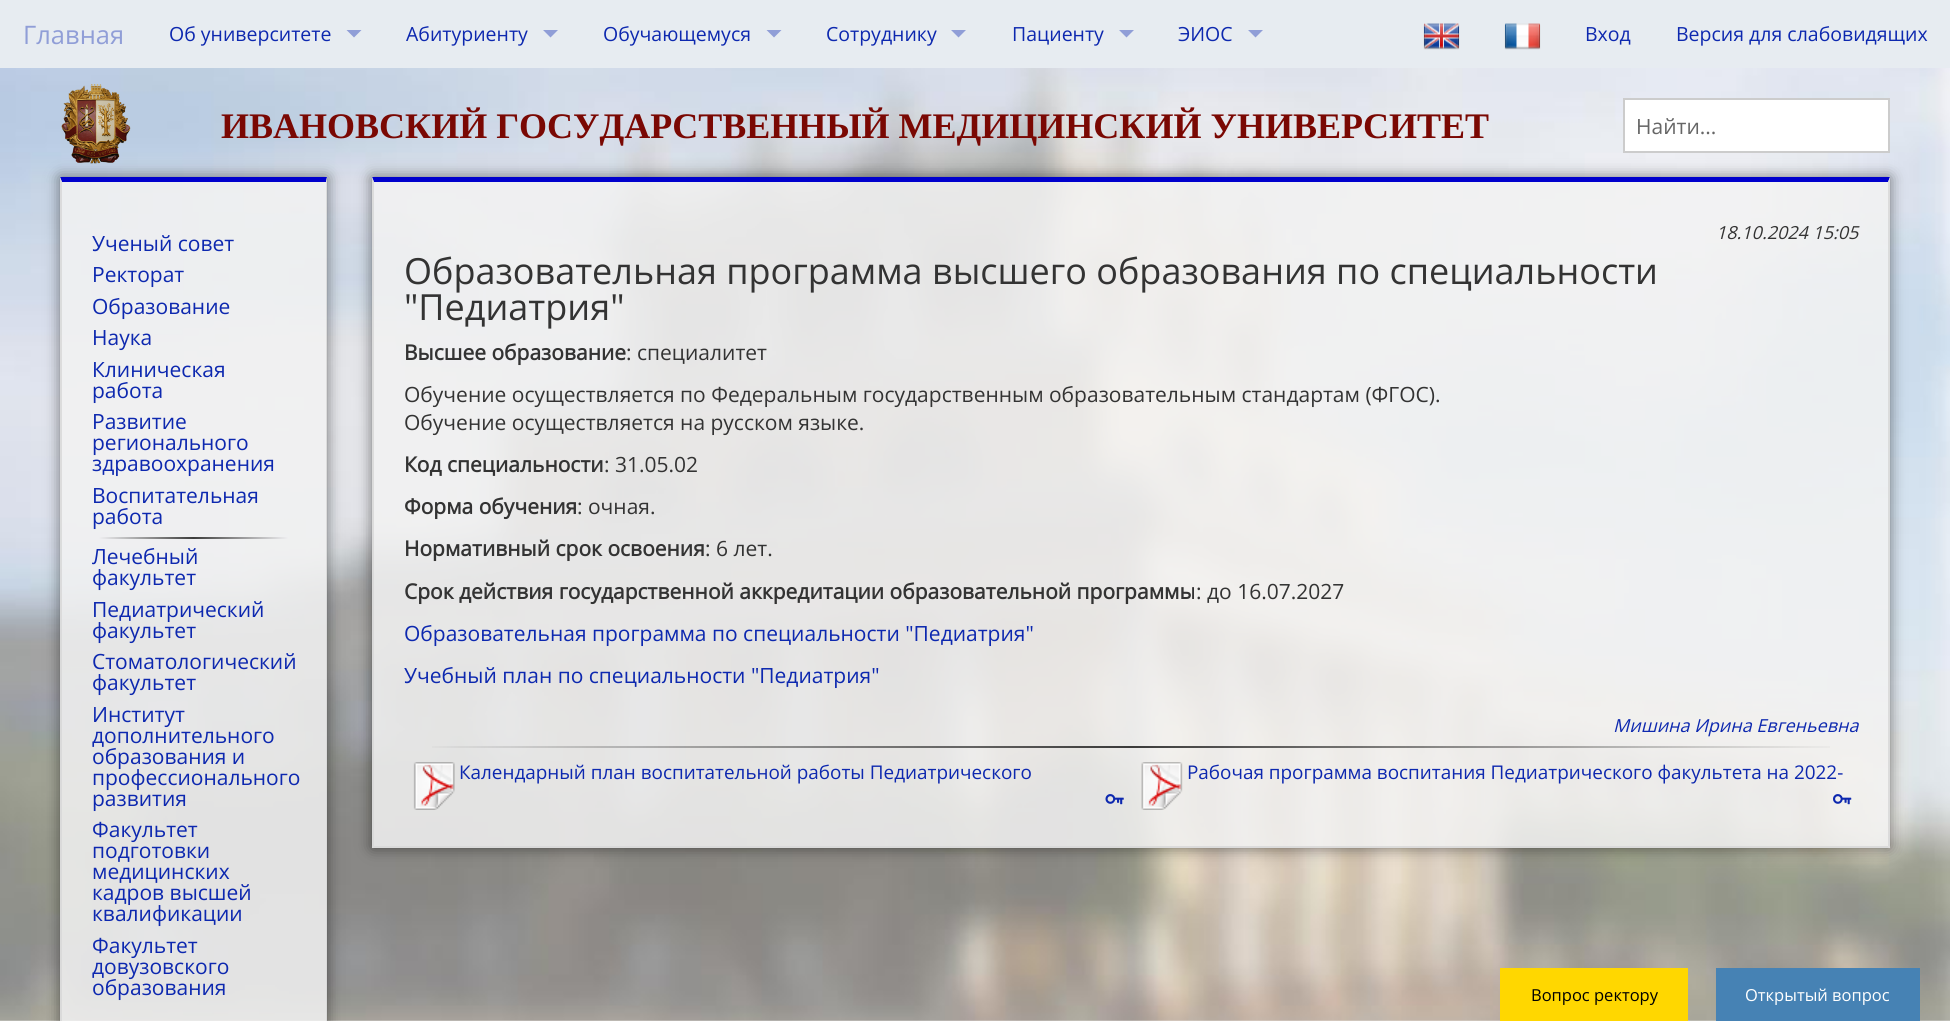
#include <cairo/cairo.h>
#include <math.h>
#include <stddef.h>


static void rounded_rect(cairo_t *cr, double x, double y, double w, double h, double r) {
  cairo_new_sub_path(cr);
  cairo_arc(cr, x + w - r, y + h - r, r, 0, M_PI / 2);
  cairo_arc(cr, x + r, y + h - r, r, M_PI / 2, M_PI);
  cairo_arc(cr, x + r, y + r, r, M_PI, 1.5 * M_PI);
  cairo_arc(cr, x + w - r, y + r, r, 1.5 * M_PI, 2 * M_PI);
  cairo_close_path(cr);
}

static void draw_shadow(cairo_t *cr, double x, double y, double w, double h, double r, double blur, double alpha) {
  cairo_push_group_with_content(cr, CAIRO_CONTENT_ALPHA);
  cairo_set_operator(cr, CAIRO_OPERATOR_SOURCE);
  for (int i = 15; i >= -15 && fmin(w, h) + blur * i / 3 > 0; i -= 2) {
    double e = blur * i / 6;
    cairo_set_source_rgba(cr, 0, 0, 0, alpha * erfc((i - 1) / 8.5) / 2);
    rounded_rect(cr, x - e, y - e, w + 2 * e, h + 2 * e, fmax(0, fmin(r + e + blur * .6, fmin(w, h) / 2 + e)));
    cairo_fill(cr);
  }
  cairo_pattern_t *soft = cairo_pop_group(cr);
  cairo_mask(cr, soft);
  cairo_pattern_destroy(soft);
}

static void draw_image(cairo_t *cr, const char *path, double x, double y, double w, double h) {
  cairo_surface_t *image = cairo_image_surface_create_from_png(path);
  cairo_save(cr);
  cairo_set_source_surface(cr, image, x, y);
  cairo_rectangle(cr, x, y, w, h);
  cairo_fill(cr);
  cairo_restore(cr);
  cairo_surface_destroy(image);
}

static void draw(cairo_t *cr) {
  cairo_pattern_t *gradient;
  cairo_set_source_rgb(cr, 1, 1, 1);
  cairo_paint(cr);
  draw_image(cr, "images/1.png", 0, 68, 1950, 953);
  cairo_set_source_rgb(cr, 231 / 255.0, 236 / 255.0, 241 / 255.0);
  cairo_rectangle(cr, 0, 0, 1950, 68);
  cairo_fill(cr);
  cairo_set_source_rgb(cr, 144 / 255.0, 158 / 255.0, 215 / 255.0);
  cairo_new_path(cr);
  cairo_move_to(cr, 346.5, 30);
  cairo_line_to(cr, 361.5, 30);
  cairo_line_to(cr, 354, 37.5);
  cairo_close_path(cr);
  cairo_fill(cr);
  cairo_new_path(cr);
  cairo_move_to(cr, 543, 30);
  cairo_line_to(cr, 558, 30);
  cairo_line_to(cr, 550.5, 37.5);
  cairo_close_path(cr);
  cairo_fill(cr);
  cairo_new_path(cr);
  cairo_move_to(cr, 766.5, 30);
  cairo_line_to(cr, 781.5, 30);
  cairo_line_to(cr, 774, 37.5);
  cairo_close_path(cr);
  cairo_fill(cr);
  cairo_new_path(cr);
  cairo_move_to(cr, 951, 30);
  cairo_line_to(cr, 966, 30);
  cairo_line_to(cr, 958.5, 37.5);
  cairo_close_path(cr);
  cairo_fill(cr);
  cairo_new_path(cr);
  cairo_move_to(cr, 1119, 30);
  cairo_line_to(cr, 1134, 30);
  cairo_line_to(cr, 1126.5, 37.5);
  cairo_close_path(cr);
  cairo_fill(cr);
  cairo_new_path(cr);
  cairo_move_to(cr, 1248, 30);
  cairo_line_to(cr, 1263, 30);
  cairo_line_to(cr, 1255.5, 37.5);
  cairo_close_path(cr);
  cairo_fill(cr);
  draw_image(cr, "images/2.png", 1423, 23, 37, 27);
  draw_image(cr, "images/3.png", 1504, 23, 37, 27);
  draw_image(cr, "images/4.png", 61, 84, 70, 80);
  cairo_set_source_rgb(cr, 1, 1, 1);
  cairo_rectangle(cr, 1624, 99, 265, 53);
  cairo_fill_preserve(cr);
  cairo_set_source_rgb(cr, 204 / 255.0, 204 / 255.0, 204 / 255.0);
  cairo_stroke(cr);
  cairo_save(cr);
  cairo_set_fill_rule(cr, CAIRO_FILL_RULE_EVEN_ODD);
  cairo_new_path(cr);
  cairo_move_to(cr, 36, 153);
  cairo_line_to(cr, 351, 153);
  cairo_line_to(cr, 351, 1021);
  cairo_line_to(cr, 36, 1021);
  cairo_close_path(cr);
  cairo_move_to(cr, 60, 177);
  cairo_line_to(cr, 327, 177);
  cairo_line_to(cr, 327, 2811);
  cairo_line_to(cr, 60, 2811);
  cairo_close_path(cr);
  cairo_clip(cr);
  cairo_set_source_rgb(cr, 0, 0, 0);
  draw_shadow(cr, 60, 177, 267, 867, 0, 7.5, 0.5);
  cairo_restore(cr);
  cairo_set_source_rgba(cr, 242 / 255.0, 242 / 255.0, 242 / 255.0, 0.85);
  cairo_rectangle(cr, 60, 177, 267, 844);
  cairo_fill(cr);
  cairo_set_source_rgb(cr, 0, 0, 205 / 255.0);
  cairo_new_path(cr);
  cairo_move_to(cr, 60, 177);
  cairo_line_to(cr, 327, 177);
  cairo_line_to(cr, 326, 182);
  cairo_line_to(cr, 62, 182);
  cairo_close_path(cr);
  cairo_fill(cr);
  cairo_set_source_rgba(cr, 216 / 255.0, 216 / 255.0, 216 / 255.0, 0.85);
  cairo_new_path(cr);
  cairo_move_to(cr, 327, 177);
  cairo_line_to(cr, 327, 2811);
  cairo_line_to(cr, 326, 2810);
  cairo_line_to(cr, 326, 182);
  cairo_close_path(cr);
  cairo_fill(cr);
  cairo_new_path(cr);
  cairo_move_to(cr, 60, 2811);
  cairo_line_to(cr, 60, 177);
  cairo_line_to(cr, 62, 182);
  cairo_line_to(cr, 62, 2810);
  cairo_close_path(cr);
  cairo_fill(cr);
  gradient = cairo_pattern_create_linear(99, 538, 288, 538);
  cairo_pattern_add_color_stop_rgba(gradient, 0, 239 / 255.0, 239 / 255.0, 241 / 255.0, 1);
  cairo_pattern_add_color_stop_rgba(gradient, 0.5, 60 / 255.0, 60 / 255.0, 60 / 255.0, 1);
  cairo_pattern_add_color_stop_rgba(gradient, 1, 239 / 255.0, 239 / 255.0, 241 / 255.0, 1);
  cairo_set_source(cr, gradient);
  cairo_pattern_destroy(gradient);
  cairo_rectangle(cr, 99, 537, 189, 2);
  cairo_fill(cr);
  cairo_save(cr);
  cairo_set_fill_rule(cr, CAIRO_FILL_RULE_EVEN_ODD);
  cairo_new_path(cr);
  cairo_move_to(cr, 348, 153);
  cairo_line_to(cr, 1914, 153);
  cairo_line_to(cr, 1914, 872);
  cairo_line_to(cr, 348, 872);
  cairo_close_path(cr);
  cairo_move_to(cr, 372, 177);
  cairo_line_to(cr, 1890, 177);
  cairo_line_to(cr, 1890, 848);
  cairo_line_to(cr, 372, 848);
  cairo_close_path(cr);
  cairo_clip(cr);
  cairo_set_source_rgb(cr, 0, 0, 0);
  draw_shadow(cr, 372, 177, 1518, 671, 0, 7.5, 0.5);
  cairo_restore(cr);
  cairo_set_source_rgba(cr, 242 / 255.0, 242 / 255.0, 242 / 255.0, 0.85);
  cairo_rectangle(cr, 372, 177, 1518, 671);
  cairo_fill(cr);
  cairo_set_source_rgb(cr, 0, 0, 205 / 255.0);
  cairo_new_path(cr);
  cairo_move_to(cr, 372, 177);
  cairo_line_to(cr, 1890, 177);
  cairo_line_to(cr, 1888, 182);
  cairo_line_to(cr, 374, 182);
  cairo_close_path(cr);
  cairo_fill(cr);
  cairo_set_source_rgba(cr, 216 / 255.0, 216 / 255.0, 216 / 255.0, 0.85);
  cairo_new_path(cr);
  cairo_move_to(cr, 1890, 177);
  cairo_line_to(cr, 1890, 848);
  cairo_line_to(cr, 1888, 846);
  cairo_line_to(cr, 1888, 182);
  cairo_close_path(cr);
  cairo_fill(cr);
  cairo_new_path(cr);
  cairo_move_to(cr, 1890, 848);
  cairo_line_to(cr, 372, 848);
  cairo_line_to(cr, 374, 846);
  cairo_line_to(cr, 1888, 846);
  cairo_close_path(cr);
  cairo_fill(cr);
  cairo_new_path(cr);
  cairo_move_to(cr, 372, 848);
  cairo_line_to(cr, 372, 177);
  cairo_line_to(cr, 374, 182);
  cairo_line_to(cr, 374, 846);
  cairo_close_path(cr);
  cairo_fill(cr);
  gradient = cairo_pattern_create_linear(411, 746, 1851, 746);
  cairo_pattern_add_color_stop_rgba(gradient, 0, 0, 0, 0, 0);
  cairo_pattern_add_color_stop_rgba(gradient, 0.5, 0, 0, 0, 0.75);
  cairo_pattern_add_color_stop_rgba(gradient, 1, 0, 0, 0, 0);
  cairo_set_source(cr, gradient);
  cairo_pattern_destroy(gradient);
  cairo_rectangle(cr, 432, 746, 1398, 2);
  cairo_fill(cr);
  draw_image(cr, "images/5.png", 413, 762, 42, 48);
  draw_image(cr, "images/6.png", 1105, 794, 19, 11);
  draw_image(cr, "images/7.png", 1141, 762, 42, 48);
  draw_image(cr, "images/8.png", 1833, 794, 19, 11);
  cairo_set_source_rgb(cr, 1, 215 / 255.0, 0);
  cairo_rectangle(cr, 1500, 968, 188, 53);
  cairo_fill(cr);
  cairo_set_source_rgb(cr, 70 / 255.0, 130 / 255.0, 180 / 255.0);
  cairo_rectangle(cr, 1716, 968, 204, 53);
  cairo_fill(cr);
  cairo_select_font_face(cr, "Open Sans", CAIRO_FONT_SLANT_NORMAL, CAIRO_FONT_WEIGHT_NORMAL);
  cairo_set_font_size(cr, 25.5);
  cairo_set_source_rgb(cr, 144 / 255.0, 158 / 255.0, 215 / 255.0);
  cairo_move_to(cr, 23, 44);
  cairo_show_text(cr, "Главная");
  cairo_set_font_size(cr, 19.5);
  cairo_set_source_rgb(cr, 13 / 255.0, 40 / 255.0, 175 / 255.0);
  cairo_move_to(cr, 169, 41);
  cairo_show_text(cr, "Об университете");
  cairo_move_to(cr, 406, 41);
  cairo_show_text(cr, "Абитуриенту");
  cairo_move_to(cr, 603, 41);
  cairo_show_text(cr, "Обучающемуся");
  cairo_move_to(cr, 826, 41);
  cairo_show_text(cr, "Сотруднику");
  cairo_move_to(cr, 1012, 41);
  cairo_show_text(cr, "Пациенту");
  cairo_move_to(cr, 1178, 41);
  cairo_show_text(cr, "ЭИОС");
  cairo_move_to(cr, 1585, 41);
  cairo_show_text(cr, "Вход");
  cairo_move_to(cr, 1676, 41);
  cairo_show_text(cr, "Версия для слабовидящих");
  cairo_select_font_face(cr, "Liberation Serif", CAIRO_FONT_SLANT_NORMAL, CAIRO_FONT_WEIGHT_BOLD);
  cairo_set_font_size(cr, 36);
  cairo_set_source_rgb(cr, 122 / 255.0, 8 / 255.0, 3 / 255.0);
  cairo_move_to(cr, 221, 138);
  cairo_show_text(cr, "ИВАНОВСКИЙ ГОСУДАРСТВЕННЫЙ МЕДИЦИНСКИЙ УНИВЕРСИТЕТ");
  cairo_select_font_face(cr, "Open Sans", CAIRO_FONT_SLANT_NORMAL, CAIRO_FONT_WEIGHT_NORMAL);
  cairo_set_font_size(cr, 21);
  cairo_set_source_rgb(cr, 102 / 255.0, 102 / 255.0, 102 / 255.0);
  cairo_move_to(cr, 1636, 134);
  cairo_show_text(cr, "Найти...");
  cairo_set_source_rgb(cr, 13 / 255.0, 40 / 255.0, 175 / 255.0);
  cairo_move_to(cr, 92, 251);
  cairo_show_text(cr, "Ученый совет");
  cairo_move_to(cr, 92, 282);
  cairo_show_text(cr, "Ректорат");
  cairo_move_to(cr, 92, 314);
  cairo_show_text(cr, "Образование");
  cairo_move_to(cr, 92, 345);
  cairo_show_text(cr, "Наука");
  cairo_move_to(cr, 92, 377);
  cairo_show_text(cr, "Клиническая");
  cairo_move_to(cr, 92, 398);
  cairo_show_text(cr, "работа");
  cairo_move_to(cr, 92, 429);
  cairo_show_text(cr, "Развитие");
  cairo_move_to(cr, 92, 450);
  cairo_show_text(cr, "регионального");
  cairo_move_to(cr, 92, 471);
  cairo_show_text(cr, "здравоохранения");
  cairo_move_to(cr, 92, 503);
  cairo_show_text(cr, "Воспитательная");
  cairo_move_to(cr, 92, 524);
  cairo_show_text(cr, "работа");
  cairo_move_to(cr, 92, 564);
  cairo_show_text(cr, "Лечебный");
  cairo_move_to(cr, 92, 585);
  cairo_show_text(cr, "факультет");
  cairo_move_to(cr, 92, 617);
  cairo_show_text(cr, "Педиатрический");
  cairo_move_to(cr, 92, 638);
  cairo_show_text(cr, "факультет");
  cairo_move_to(cr, 92, 669);
  cairo_show_text(cr, "Стоматологический");
  cairo_move_to(cr, 92, 690);
  cairo_show_text(cr, "факультет");
  cairo_move_to(cr, 92, 722);
  cairo_show_text(cr, "Институт");
  cairo_move_to(cr, 92, 743);
  cairo_show_text(cr, "дополнительного");
  cairo_move_to(cr, 92, 764);
  cairo_show_text(cr, "образования и");
  cairo_move_to(cr, 92, 785);
  cairo_show_text(cr, "профессионального");
  cairo_move_to(cr, 92, 806);
  cairo_show_text(cr, "развития");
  cairo_move_to(cr, 92, 837);
  cairo_show_text(cr, "Факультет");
  cairo_move_to(cr, 92, 858);
  cairo_show_text(cr, "подготовки");
  cairo_move_to(cr, 92, 879);
  cairo_show_text(cr, "медицинских");
  cairo_move_to(cr, 92, 900);
  cairo_show_text(cr, "кадров высшей");
  cairo_move_to(cr, 92, 921);
  cairo_show_text(cr, "квалификации");
  cairo_move_to(cr, 92, 953);
  cairo_show_text(cr, "Факультет");
  cairo_move_to(cr, 92, 974);
  cairo_show_text(cr, "довузовского");
  cairo_move_to(cr, 92, 995);
  cairo_show_text(cr, "образования");
  cairo_select_font_face(cr, "Open Sans", CAIRO_FONT_SLANT_ITALIC, CAIRO_FONT_WEIGHT_NORMAL);
  cairo_set_font_size(cr, 18);
  cairo_set_source_rgb(cr, 51 / 255.0, 51 / 255.0, 51 / 255.0);
  cairo_move_to(cr, 1716, 239);
  cairo_show_text(cr, "18.10.2024 15:05");
  cairo_select_font_face(cr, "Open Sans", CAIRO_FONT_SLANT_NORMAL, CAIRO_FONT_WEIGHT_NORMAL);
  cairo_set_font_size(cr, 36);
  cairo_move_to(cr, 404, 284);
  cairo_show_text(cr, "Образовательная программа высшего образования по специальности");
  cairo_move_to(cr, 404, 320);
  cairo_show_text(cr, "\"Педиатрия\"");
  cairo_select_font_face(cr, "Open Sans", CAIRO_FONT_SLANT_NORMAL, CAIRO_FONT_WEIGHT_BOLD);
  cairo_set_font_size(cr, 21);
  cairo_move_to(cr, 404, 360);
  cairo_show_text(cr, "Высшее образование");
  cairo_select_font_face(cr, "Open Sans", CAIRO_FONT_SLANT_NORMAL, CAIRO_FONT_WEIGHT_NORMAL);
  cairo_move_to(cr, 626, 360);
  cairo_show_text(cr, ": специалитет");
  cairo_move_to(cr, 404, 402);
  cairo_show_text(cr, "Обучение осуществляется по Федеральным государственным образовательным стандартам (ФГОС).");
  cairo_move_to(cr, 404, 430);
  cairo_show_text(cr, "Обучение осуществляется на русском языке.");
  cairo_select_font_face(cr, "Open Sans", CAIRO_FONT_SLANT_NORMAL, CAIRO_FONT_WEIGHT_BOLD);
  cairo_move_to(cr, 404, 472);
  cairo_show_text(cr, "Код специальности");
  cairo_select_font_face(cr, "Open Sans", CAIRO_FONT_SLANT_NORMAL, CAIRO_FONT_WEIGHT_NORMAL);
  cairo_move_to(cr, 604, 472);
  cairo_show_text(cr, ": 31.05.02");
  cairo_select_font_face(cr, "Open Sans", CAIRO_FONT_SLANT_NORMAL, CAIRO_FONT_WEIGHT_BOLD);
  cairo_move_to(cr, 404, 514);
  cairo_show_text(cr, "Форма обучения");
  cairo_select_font_face(cr, "Open Sans", CAIRO_FONT_SLANT_NORMAL, CAIRO_FONT_WEIGHT_NORMAL);
  cairo_move_to(cr, 577, 514);
  cairo_show_text(cr, ": очная.");
  cairo_select_font_face(cr, "Open Sans", CAIRO_FONT_SLANT_NORMAL, CAIRO_FONT_WEIGHT_BOLD);
  cairo_move_to(cr, 404, 556);
  cairo_show_text(cr, "Нормативный срок освоения");
  cairo_select_font_face(cr, "Open Sans", CAIRO_FONT_SLANT_NORMAL, CAIRO_FONT_WEIGHT_NORMAL);
  cairo_move_to(cr, 705, 556);
  cairo_show_text(cr, ": 6 лет.");
  cairo_select_font_face(cr, "Open Sans", CAIRO_FONT_SLANT_NORMAL, CAIRO_FONT_WEIGHT_BOLD);
  cairo_move_to(cr, 404, 599);
  cairo_show_text(cr, "Срок действия государственной аккредитации образовательной программы");
  cairo_select_font_face(cr, "Open Sans", CAIRO_FONT_SLANT_NORMAL, CAIRO_FONT_WEIGHT_NORMAL);
  cairo_move_to(cr, 1196, 599);
  cairo_show_text(cr, ": до 16.07.2027");
  cairo_set_source_rgb(cr, 13 / 255.0, 40 / 255.0, 175 / 255.0);
  cairo_move_to(cr, 404, 641);
  cairo_show_text(cr, "Образовательная программа по специальности \"Педиатрия\"");
  cairo_move_to(cr, 404, 683);
  cairo_show_text(cr, "Учебный план по специальности \"Педиатрия\"");
  cairo_select_font_face(cr, "Open Sans", CAIRO_FONT_SLANT_ITALIC, CAIRO_FONT_WEIGHT_NORMAL);
  cairo_set_font_size(cr, 18);
  cairo_move_to(cr, 1613, 732);
  cairo_show_text(cr, "Мишина Ирина Евгеньевна");
  cairo_select_font_face(cr, "Open Sans", CAIRO_FONT_SLANT_NORMAL, CAIRO_FONT_WEIGHT_NORMAL);
  cairo_set_font_size(cr, 18.9);
  cairo_move_to(cr, 459, 779);
  cairo_show_text(cr, "Календарный план воспитательной работы Педиатрического");
  cairo_move_to(cr, 1187, 779);
  cairo_show_text(cr, "Рабочая программа воспитания Педиатрического факультета на 2022-");
  cairo_set_font_size(cr, 16.5);
  cairo_set_source_rgb(cr, 0, 0, 0);
  cairo_move_to(cr, 1531, 1001);
  cairo_show_text(cr, "Вопрос ректору");
  cairo_set_source_rgb(cr, 1, 1, 1);
  cairo_move_to(cr, 1745, 1001);
  cairo_show_text(cr, "Открытый вопрос");
}

int main(void) {
  cairo_surface_t *surface = cairo_image_surface_create(CAIRO_FORMAT_RGB24, 1950, 1021);
  cairo_t *cr = cairo_create(surface);
  cairo_font_options_t *options = cairo_font_options_create();
  cairo_font_options_set_hint_metrics(options, CAIRO_HINT_METRICS_OFF);
  cairo_font_options_set_hint_style(options, CAIRO_HINT_STYLE_NONE);
  cairo_set_font_options(cr, options);
  cairo_set_miter_limit(cr, 4);
  draw(cr);
  cairo_surface_write_to_png(surface, "out.png");
  cairo_font_options_destroy(options);
  cairo_destroy(cr);
  cairo_surface_destroy(surface);
  return 0;
}
